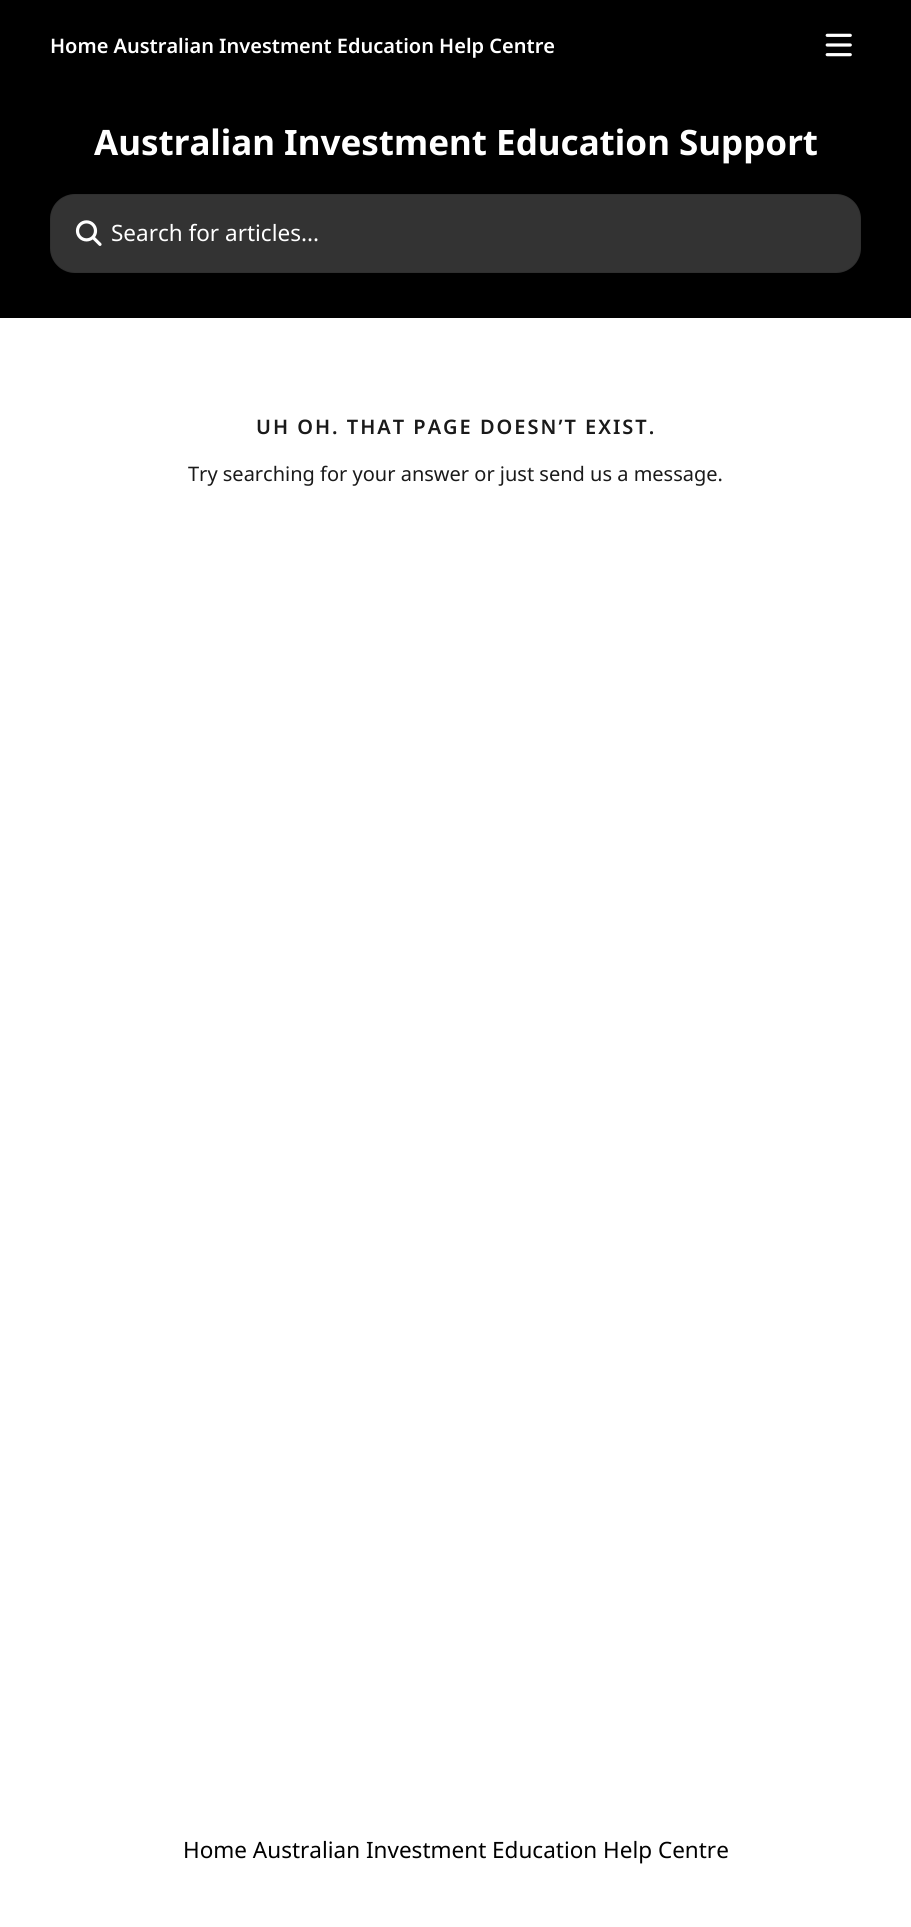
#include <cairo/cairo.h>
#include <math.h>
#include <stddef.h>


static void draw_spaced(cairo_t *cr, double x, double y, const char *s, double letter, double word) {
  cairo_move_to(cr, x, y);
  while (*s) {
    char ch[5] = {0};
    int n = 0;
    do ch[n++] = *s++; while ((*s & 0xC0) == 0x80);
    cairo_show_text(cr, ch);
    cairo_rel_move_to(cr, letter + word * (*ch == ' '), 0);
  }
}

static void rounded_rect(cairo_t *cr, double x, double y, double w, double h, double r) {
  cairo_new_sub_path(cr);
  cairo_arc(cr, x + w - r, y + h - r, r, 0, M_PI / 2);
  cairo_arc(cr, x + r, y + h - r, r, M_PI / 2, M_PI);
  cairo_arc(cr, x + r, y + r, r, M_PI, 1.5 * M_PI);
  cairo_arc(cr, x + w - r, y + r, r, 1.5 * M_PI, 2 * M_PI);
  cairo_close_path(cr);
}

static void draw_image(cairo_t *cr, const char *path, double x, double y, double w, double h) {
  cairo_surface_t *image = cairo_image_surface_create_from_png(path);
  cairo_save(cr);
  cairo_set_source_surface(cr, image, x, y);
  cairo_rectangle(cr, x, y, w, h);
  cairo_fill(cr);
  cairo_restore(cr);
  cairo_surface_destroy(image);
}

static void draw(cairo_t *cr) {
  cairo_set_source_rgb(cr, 1, 1, 1);
  cairo_paint(cr);
  cairo_set_source_rgb(cr, 0, 0, 0);
  cairo_rectangle(cr, 0, 0, 911, 318);
  cairo_fill(cr);
  draw_image(cr, "images/1.png", 825, 33, 27, 24);
  cairo_set_source_rgb(cr, 51 / 255.0, 51 / 255.0, 51 / 255.0);
  rounded_rect(cr, 50, 194, 811, 79, 25);
  cairo_fill(cr);
  rounded_rect(cr, 50.5, 194.5, 810, 78, 24.5);
  cairo_set_source_rgba(cr, 0, 0, 0, 0.08);
  cairo_set_line_width(cr, 1);
  cairo_stroke(cr);
  draw_image(cr, "images/2.png", 75, 220, 27, 26);
  cairo_select_font_face(cr, "Noto Sans SemiBold", CAIRO_FONT_SLANT_NORMAL, CAIRO_FONT_WEIGHT_NORMAL);
  cairo_set_font_size(cr, 20);
  cairo_set_source_rgb(cr, 1, 1, 1);
  cairo_move_to(cr, 50, 53);
  cairo_show_text(cr, "Home Australian Investment Education Help Centre");
  cairo_select_font_face(cr, "Noto Sans", CAIRO_FONT_SLANT_NORMAL, CAIRO_FONT_WEIGHT_BOLD);
  cairo_set_font_size(cr, 35);
  cairo_move_to(cr, 94, 155);
  cairo_show_text(cr, "Australian Investment Education Support");
  cairo_select_font_face(cr, "Noto Sans", CAIRO_FONT_SLANT_NORMAL, CAIRO_FONT_WEIGHT_NORMAL);
  cairo_set_font_size(cr, 22.5);
  cairo_move_to(cr, 111, 241);
  cairo_show_text(cr, "Search for articles...");
  cairo_select_font_face(cr, "Noto Sans SemiBold", CAIRO_FONT_SLANT_NORMAL, CAIRO_FONT_WEIGHT_NORMAL);
  cairo_set_font_size(cr, 20);
  cairo_set_source_rgb(cr, 26 / 255.0, 26 / 255.0, 26 / 255.0);
  draw_spaced(cr, 256, 434, "UH OH. THAT PAGE DOESN’T EXIST.", 2, 0);
  cairo_select_font_face(cr, "Noto Sans", CAIRO_FONT_SLANT_NORMAL, CAIRO_FONT_WEIGHT_NORMAL);
  cairo_move_to(cr, 188, 481);
  cairo_show_text(cr, "Try searching for your answer or just send us a message.");
  cairo_set_font_size(cr, 22.5);
  cairo_set_source_rgb(cr, 0, 0, 0);
  cairo_move_to(cr, 183, 1858);
  cairo_show_text(cr, "Home Australian Investment Education Help Centre");
}

int main(void) {
  cairo_surface_t *surface = cairo_image_surface_create(CAIRO_FORMAT_RGB24, 911, 1927);
  cairo_t *cr = cairo_create(surface);
  cairo_font_options_t *options = cairo_font_options_create();
  cairo_font_options_set_hint_metrics(options, CAIRO_HINT_METRICS_OFF);
  cairo_font_options_set_hint_style(options, CAIRO_HINT_STYLE_NONE);
  cairo_set_font_options(cr, options);
  cairo_set_miter_limit(cr, 4);
  draw(cr);
  cairo_surface_write_to_png(surface, "out.png");
  cairo_font_options_destroy(options);
  cairo_destroy(cr);
  cairo_surface_destroy(surface);
  return 0;
}
